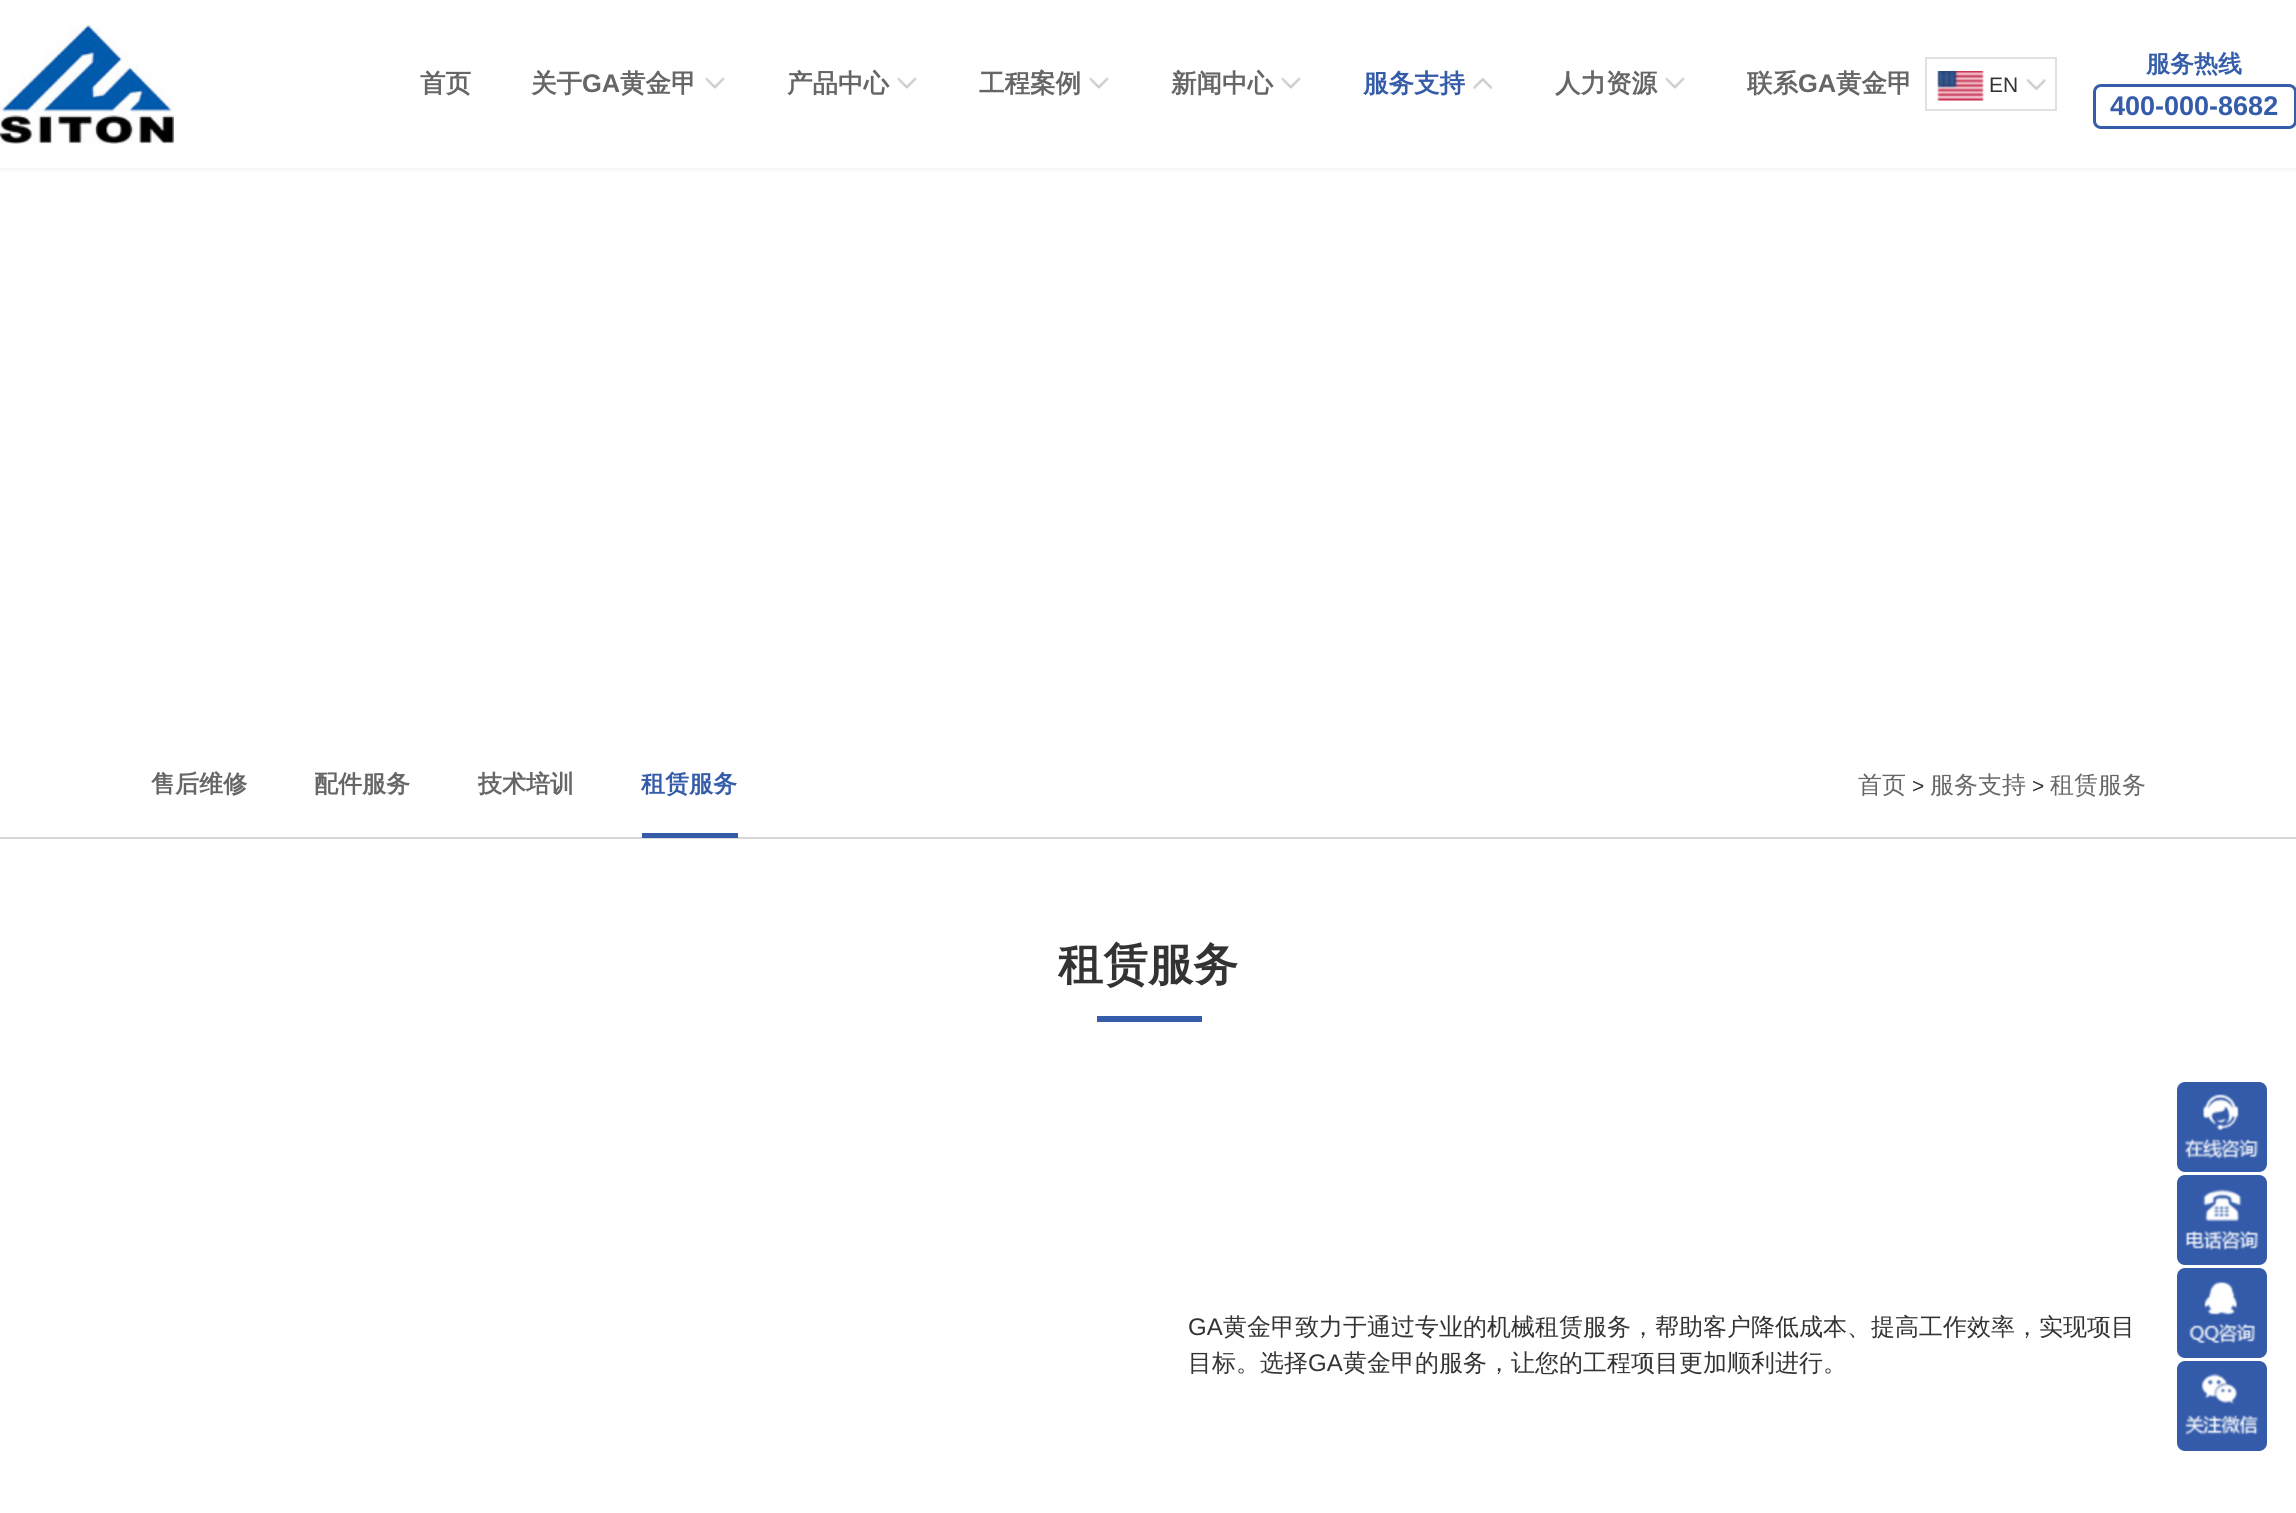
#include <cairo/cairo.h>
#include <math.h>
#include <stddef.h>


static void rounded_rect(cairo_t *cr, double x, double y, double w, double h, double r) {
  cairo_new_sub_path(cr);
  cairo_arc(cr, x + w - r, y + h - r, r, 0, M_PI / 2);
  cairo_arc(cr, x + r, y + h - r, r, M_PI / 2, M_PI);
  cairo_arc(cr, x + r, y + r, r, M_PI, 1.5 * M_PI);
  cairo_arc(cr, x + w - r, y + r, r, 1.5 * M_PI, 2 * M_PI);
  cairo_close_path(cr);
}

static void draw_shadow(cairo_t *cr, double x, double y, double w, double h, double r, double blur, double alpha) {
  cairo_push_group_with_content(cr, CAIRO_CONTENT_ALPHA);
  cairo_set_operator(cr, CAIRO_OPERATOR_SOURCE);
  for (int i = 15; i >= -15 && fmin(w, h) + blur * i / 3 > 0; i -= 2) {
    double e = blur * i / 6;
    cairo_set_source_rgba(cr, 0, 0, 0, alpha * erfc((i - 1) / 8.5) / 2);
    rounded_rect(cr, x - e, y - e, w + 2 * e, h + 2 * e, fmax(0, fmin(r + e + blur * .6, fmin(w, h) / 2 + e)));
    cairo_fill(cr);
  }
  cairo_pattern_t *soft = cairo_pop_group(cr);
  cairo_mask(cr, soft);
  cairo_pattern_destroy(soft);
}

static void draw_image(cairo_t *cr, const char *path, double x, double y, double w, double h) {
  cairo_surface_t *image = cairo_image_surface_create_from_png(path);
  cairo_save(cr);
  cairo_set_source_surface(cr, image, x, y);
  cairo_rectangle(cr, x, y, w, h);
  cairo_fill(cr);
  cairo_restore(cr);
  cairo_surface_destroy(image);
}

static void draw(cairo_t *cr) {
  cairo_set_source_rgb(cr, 1, 1, 1);
  cairo_paint(cr);
  cairo_set_source_rgb(cr, 0, 0, 0);
  draw_shadow(cr, 0, 2, 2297, 168, 0, 2, 0.05);
  cairo_set_source_rgb(cr, 1, 1, 1);
  cairo_rectangle(cr, 0, 0, 2296, 168);
  cairo_fill(cr);
  draw_image(cr, "images/1.png", 0, 24, 174, 120);
  draw_image(cr, "images/2.png", 705, 77, 20, 12);
  draw_image(cr, "images/3.png", 897, 77, 20, 12);
  draw_image(cr, "images/3.png", 1089, 77, 20, 12);
  draw_image(cr, "images/3.png", 1281, 77, 20, 12);
  draw_image(cr, "images/4.png", 1473, 77, 20, 13);
  draw_image(cr, "images/2.png", 1665, 77, 20, 12);
  cairo_rectangle(cr, 1926, 58, 130, 52);
  cairo_set_source_rgb(cr, 225 / 255.0, 225 / 255.0, 225 / 255.0);
  cairo_stroke(cr);
  draw_image(cr, "images/5.png", 1937, 71, 47, 30);
  draw_image(cr, "images/6.png", 2026, 78, 20, 13);
  rounded_rect(cr, 2094.5, 85.5, 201, 42, 6.5);
  cairo_set_source_rgb(cr, 53 / 255.0, 93 / 255.0, 169 / 255.0);
  cairo_set_line_width(cr, 3);
  cairo_stroke(cr);
  cairo_set_source_rgb(cr, 215 / 255.0, 215 / 255.0, 215 / 255.0);
  cairo_rectangle(cr, 0, 837, 2296, 2);
  cairo_fill(cr);
  cairo_set_source_rgb(cr, 52 / 255.0, 92 / 255.0, 168 / 255.0);
  cairo_rectangle(cr, 642, 833, 96, 5);
  cairo_fill(cr);
  cairo_set_source_rgb(cr, 53 / 255.0, 93 / 255.0, 169 / 255.0);
  cairo_rectangle(cr, 1097, 1016, 105, 6);
  cairo_fill(cr);
  cairo_set_source_rgb(cr, 52 / 255.0, 91 / 255.0, 170 / 255.0);
  rounded_rect(cr, 2177, 1082, 90, 90, 8);
  cairo_fill(cr);
  draw_image(cr, "images/7.png", 2184, 1094, 75, 65);
  rounded_rect(cr, 2177, 1175, 90, 90, 8);
  cairo_fill(cr);
  draw_image(cr, "images/8.png", 2185, 1189, 74, 62);
  rounded_rect(cr, 2177, 1268, 90, 90, 8);
  cairo_fill(cr);
  draw_image(cr, "images/9.png", 2189, 1281, 67, 63);
  rounded_rect(cr, 2177, 1361, 90, 90, 8);
  cairo_fill(cr);
  draw_image(cr, "images/10.png", 2185, 1373, 74, 62);
  cairo_select_font_face(cr, "WenQuanYi Zen Hei", CAIRO_FONT_SLANT_NORMAL, CAIRO_FONT_WEIGHT_BOLD);
  cairo_set_font_size(cr, 25.5);
  cairo_set_source_rgb(cr, 102 / 255.0, 102 / 255.0, 102 / 255.0);
  cairo_move_to(cr, 420, 92);
  cairo_show_text(cr, "首页");
  cairo_move_to(cr, 531, 92);
  cairo_show_text(cr, "关于");
  cairo_select_font_face(cr, "Liberation Sans", CAIRO_FONT_SLANT_NORMAL, CAIRO_FONT_WEIGHT_BOLD);
  cairo_move_to(cr, 582, 92);
  cairo_show_text(cr, "GA");
  cairo_select_font_face(cr, "WenQuanYi Zen Hei", CAIRO_FONT_SLANT_NORMAL, CAIRO_FONT_WEIGHT_BOLD);
  cairo_move_to(cr, 620, 92);
  cairo_show_text(cr, "黄金甲");
  cairo_move_to(cr, 787, 92);
  cairo_show_text(cr, "产品中心");
  cairo_move_to(cr, 979, 92);
  cairo_show_text(cr, "工程案例");
  cairo_move_to(cr, 1171, 92);
  cairo_show_text(cr, "新闻中心");
  cairo_set_source_rgb(cr, 52 / 255.0, 92 / 255.0, 168 / 255.0);
  cairo_move_to(cr, 1363, 92);
  cairo_show_text(cr, "服务支持");
  cairo_set_source_rgb(cr, 102 / 255.0, 102 / 255.0, 102 / 255.0);
  cairo_move_to(cr, 1555, 92);
  cairo_show_text(cr, "人力资源");
  cairo_move_to(cr, 1747, 92);
  cairo_show_text(cr, "联系");
  cairo_select_font_face(cr, "Liberation Sans", CAIRO_FONT_SLANT_NORMAL, CAIRO_FONT_WEIGHT_BOLD);
  cairo_move_to(cr, 1798, 92);
  cairo_show_text(cr, "GA");
  cairo_select_font_face(cr, "WenQuanYi Zen Hei", CAIRO_FONT_SLANT_NORMAL, CAIRO_FONT_WEIGHT_BOLD);
  cairo_move_to(cr, 1836, 92);
  cairo_show_text(cr, "黄金甲");
  cairo_select_font_face(cr, "Liberation Sans", CAIRO_FONT_SLANT_NORMAL, CAIRO_FONT_WEIGHT_NORMAL);
  cairo_set_font_size(cr, 21);
  cairo_set_source_rgb(cr, 51 / 255.0, 51 / 255.0, 51 / 255.0);
  cairo_move_to(cr, 1989, 92);
  cairo_show_text(cr, "EN");
  cairo_select_font_face(cr, "WenQuanYi Zen Hei", CAIRO_FONT_SLANT_NORMAL, CAIRO_FONT_WEIGHT_BOLD);
  cairo_set_font_size(cr, 24);
  cairo_set_source_rgb(cr, 52 / 255.0, 92 / 255.0, 168 / 255.0);
  cairo_move_to(cr, 2146, 72);
  cairo_show_text(cr, "服务热线");
  cairo_select_font_face(cr, "Liberation Sans", CAIRO_FONT_SLANT_NORMAL, CAIRO_FONT_WEIGHT_BOLD);
  cairo_set_font_size(cr, 27);
  cairo_move_to(cr, 2110, 115);
  cairo_show_text(cr, "400-000-8682");
  cairo_select_font_face(cr, "WenQuanYi Zen Hei", CAIRO_FONT_SLANT_NORMAL, CAIRO_FONT_WEIGHT_BOLD);
  cairo_set_font_size(cr, 24);
  cairo_set_source_rgb(cr, 102 / 255.0, 102 / 255.0, 102 / 255.0);
  cairo_move_to(cr, 151, 792);
  cairo_show_text(cr, "售后维修");
  cairo_move_to(cr, 314, 792);
  cairo_show_text(cr, "配件服务");
  cairo_move_to(cr, 478, 792);
  cairo_show_text(cr, "技术培训");
  cairo_set_source_rgb(cr, 52 / 255.0, 92 / 255.0, 168 / 255.0);
  cairo_move_to(cr, 641, 792);
  cairo_show_text(cr, "租赁服务");
  cairo_select_font_face(cr, "WenQuanYi Zen Hei Medium", CAIRO_FONT_SLANT_NORMAL, CAIRO_FONT_WEIGHT_NORMAL);
  cairo_set_source_rgb(cr, 102 / 255.0, 102 / 255.0, 102 / 255.0);
  cairo_move_to(cr, 1858, 793);
  cairo_show_text(cr, "首页");
  cairo_select_font_face(cr, "Liberation Sans", CAIRO_FONT_SLANT_NORMAL, CAIRO_FONT_WEIGHT_NORMAL);
  cairo_set_font_size(cr, 21);
  cairo_set_source_rgb(cr, 51 / 255.0, 51 / 255.0, 51 / 255.0);
  cairo_move_to(cr, 1912, 793);
  cairo_show_text(cr, ">");
  cairo_select_font_face(cr, "WenQuanYi Zen Hei Medium", CAIRO_FONT_SLANT_NORMAL, CAIRO_FONT_WEIGHT_NORMAL);
  cairo_set_font_size(cr, 24);
  cairo_set_source_rgb(cr, 102 / 255.0, 102 / 255.0, 102 / 255.0);
  cairo_move_to(cr, 1930, 793);
  cairo_show_text(cr, "服务支持");
  cairo_select_font_face(cr, "Liberation Sans", CAIRO_FONT_SLANT_NORMAL, CAIRO_FONT_WEIGHT_NORMAL);
  cairo_set_font_size(cr, 21);
  cairo_set_source_rgb(cr, 51 / 255.0, 51 / 255.0, 51 / 255.0);
  cairo_move_to(cr, 2032, 793);
  cairo_show_text(cr, ">");
  cairo_select_font_face(cr, "WenQuanYi Zen Hei Medium", CAIRO_FONT_SLANT_NORMAL, CAIRO_FONT_WEIGHT_NORMAL);
  cairo_set_font_size(cr, 24);
  cairo_set_source_rgb(cr, 102 / 255.0, 102 / 255.0, 102 / 255.0);
  cairo_move_to(cr, 2050, 793);
  cairo_show_text(cr, "租赁服务");
  cairo_select_font_face(cr, "WenQuanYi Zen Hei", CAIRO_FONT_SLANT_NORMAL, CAIRO_FONT_WEIGHT_BOLD);
  cairo_set_font_size(cr, 45);
  cairo_set_source_rgb(cr, 51 / 255.0, 51 / 255.0, 51 / 255.0);
  cairo_move_to(cr, 1058, 980);
  cairo_show_text(cr, "租赁服务");
  cairo_select_font_face(cr, "Liberation Sans", CAIRO_FONT_SLANT_NORMAL, CAIRO_FONT_WEIGHT_NORMAL);
  cairo_set_font_size(cr, 24);
  cairo_move_to(cr, 1188, 1335);
  cairo_show_text(cr, "GA");
  cairo_select_font_face(cr, "WenQuanYi Zen Hei Medium", CAIRO_FONT_SLANT_NORMAL, CAIRO_FONT_WEIGHT_NORMAL);
  cairo_move_to(cr, 1223, 1335);
  cairo_show_text(cr, "黄金甲致力于通过专业的机械租赁服务，帮助客户降低成本、提高工作效率，实现项目");
  cairo_move_to(cr, 1188, 1371);
  cairo_show_text(cr, "目标。选择");
  cairo_select_font_face(cr, "Liberation Sans", CAIRO_FONT_SLANT_NORMAL, CAIRO_FONT_WEIGHT_NORMAL);
  cairo_move_to(cr, 1308, 1371);
  cairo_show_text(cr, "GA");
  cairo_select_font_face(cr, "WenQuanYi Zen Hei Medium", CAIRO_FONT_SLANT_NORMAL, CAIRO_FONT_WEIGHT_NORMAL);
  cairo_move_to(cr, 1343, 1371);
  cairo_show_text(cr, "黄金甲的服务，让您的工程项目更加顺利进行。");
}

int main(void) {
  cairo_surface_t *surface = cairo_image_surface_create(CAIRO_FORMAT_RGB24, 2296, 1513);
  cairo_t *cr = cairo_create(surface);
  cairo_font_options_t *options = cairo_font_options_create();
  cairo_font_options_set_hint_metrics(options, CAIRO_HINT_METRICS_OFF);
  cairo_font_options_set_hint_style(options, CAIRO_HINT_STYLE_NONE);
  cairo_set_font_options(cr, options);
  cairo_set_miter_limit(cr, 4);
  draw(cr);
  cairo_surface_write_to_png(surface, "out.png");
  cairo_font_options_destroy(options);
  cairo_destroy(cr);
  cairo_surface_destroy(surface);
  return 0;
}
